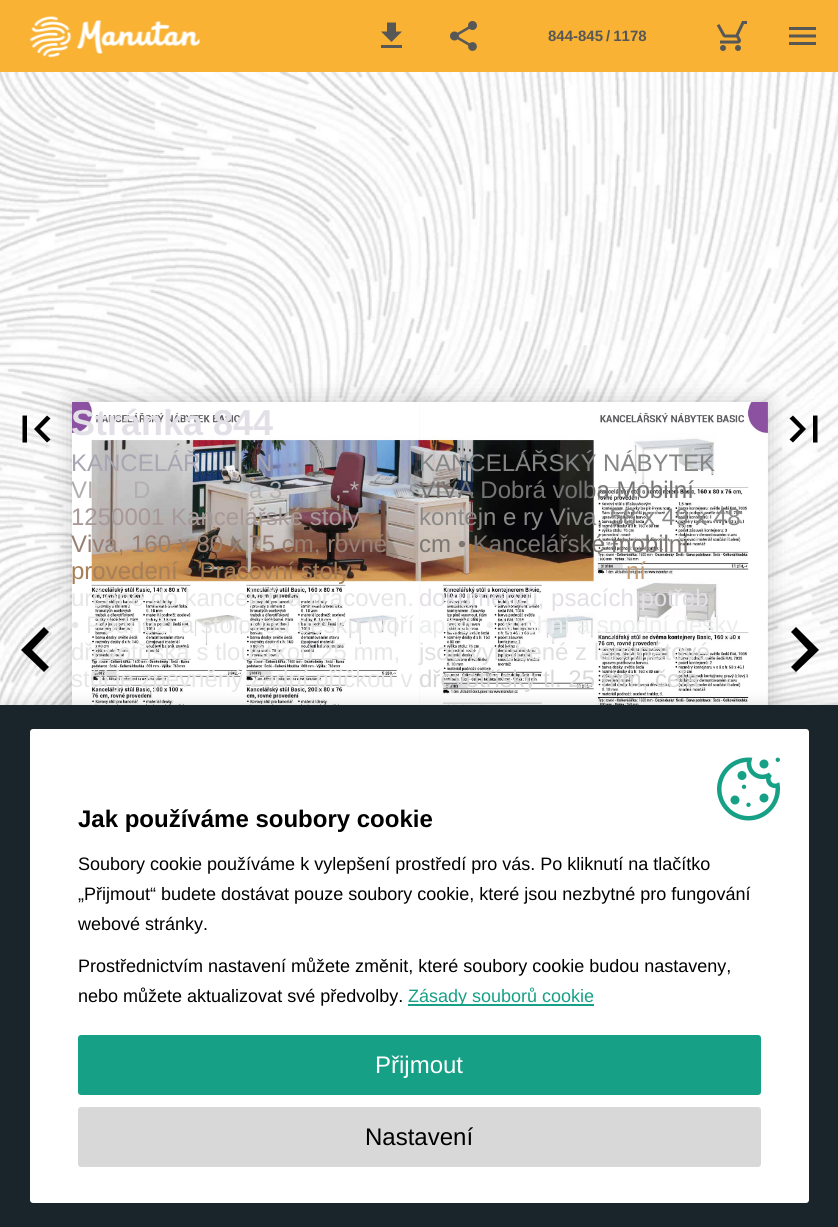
#include <cairo/cairo.h>
#include <math.h>
#include <stddef.h>


static void rounded_rect(cairo_t *cr, double x, double y, double w, double h, double r) {
  cairo_new_sub_path(cr);
  cairo_arc(cr, x + w - r, y + h - r, r, 0, M_PI / 2);
  cairo_arc(cr, x + r, y + h - r, r, M_PI / 2, M_PI);
  cairo_arc(cr, x + r, y + r, r, M_PI, 1.5 * M_PI);
  cairo_arc(cr, x + w - r, y + r, r, 1.5 * M_PI, 2 * M_PI);
  cairo_close_path(cr);
}

static void draw_shadow(cairo_t *cr, double x, double y, double w, double h, double r, double blur, double alpha) {
  cairo_push_group_with_content(cr, CAIRO_CONTENT_ALPHA);
  cairo_set_operator(cr, CAIRO_OPERATOR_SOURCE);
  for (int i = 15; i >= -15 && fmin(w, h) + blur * i / 3 > 0; i -= 2) {
    double e = blur * i / 6;
    cairo_set_source_rgba(cr, 0, 0, 0, alpha * erfc((i - 1) / 8.5) / 2);
    rounded_rect(cr, x - e, y - e, w + 2 * e, h + 2 * e, fmax(0, fmin(r + e + blur * .6, fmin(w, h) / 2 + e)));
    cairo_fill(cr);
  }
  cairo_pattern_t *soft = cairo_pop_group(cr);
  cairo_mask(cr, soft);
  cairo_pattern_destroy(soft);
}

static void draw_image(cairo_t *cr, const char *path, double x, double y, double w, double h) {
  cairo_surface_t *image = cairo_image_surface_create_from_png(path);
  cairo_save(cr);
  cairo_set_source_surface(cr, image, x, y);
  cairo_rectangle(cr, x, y, w, h);
  cairo_fill(cr);
  cairo_restore(cr);
  cairo_surface_destroy(image);
}

static void draw(cairo_t *cr) {
  cairo_set_source_rgb(cr, 1, 1, 1);
  cairo_paint(cr);
  cairo_set_source_rgb(cr, 249 / 255.0, 178 / 255.0, 51 / 255.0);
  cairo_rectangle(cr, 0, 0, 838, 72);
  cairo_fill(cr);
  draw_image(cr, "images/1.png", 29, 16, 171, 42);
  draw_image(cr, "images/2.png", 381, 22, 21, 26);
  draw_image(cr, "images/3.png", 450, 21, 27, 30);
  draw_image(cr, "images/4.png", 716, 21, 31, 30);
  draw_image(cr, "images/5.png", 789, 27, 27, 18);
  draw_image(cr, "images/6.png", 0, 72, 838, 633);
  cairo_set_source_rgb(cr, 0, 0, 0);
  draw_shadow(cr, 72, 402, 348, 495, 0, 12, 0.2);
  cairo_set_source_rgb(cr, 0, 0, 0);
  cairo_new_path(cr);
  cairo_move_to(cr, 50.5, 439.5);
  cairo_line_to(cr, 40, 429);
  cairo_line_to(cr, 50.5, 418.5);
  cairo_line_to(cr, 47, 415.5);
  cairo_line_to(cr, 34, 429);
  cairo_line_to(cr, 47, 442.5);
  cairo_close_path(cr);
  cairo_move_to(cr, 22.5, 415.5);
  cairo_line_to(cr, 27, 415.5);
  cairo_line_to(cr, 27, 442.5);
  cairo_line_to(cr, 22.5, 442.5);
  cairo_close_path(cr);
  cairo_fill(cr);
  cairo_new_path(cr);
  cairo_move_to(cr, 49, 632);
  cairo_line_to(cr, 44, 627);
  cairo_line_to(cr, 21, 650);
  cairo_line_to(cr, 44, 672);
  cairo_line_to(cr, 49, 667);
  cairo_line_to(cr, 32, 650);
  cairo_close_path(cr);
  cairo_fill(cr);
  cairo_set_source_rgb(cr, 0, 0, 0);
  draw_shadow(cr, 420, 402, 348, 495, 0, 12, 0.2);
  draw_image(cr, "images/7.png", 72, 402, 348, 303);
  draw_image(cr, "images/8.png", 420, 402, 348, 303);
  cairo_set_source_rgb(cr, 0, 0, 0);
  cairo_new_path(cr);
  cairo_move_to(cr, 789.5, 418.5);
  cairo_line_to(cr, 800, 429);
  cairo_line_to(cr, 789.5, 439.5);
  cairo_line_to(cr, 793, 442.5);
  cairo_line_to(cr, 806, 429);
  cairo_line_to(cr, 793, 415.5);
  cairo_close_path(cr);
  cairo_move_to(cr, 813, 415.5);
  cairo_line_to(cr, 817.5, 415.5);
  cairo_line_to(cr, 817.5, 442.5);
  cairo_line_to(cr, 813, 442.5);
  cairo_close_path(cr);
  cairo_fill(cr);
  cairo_new_path(cr);
  cairo_move_to(cr, 796, 627);
  cairo_line_to(cr, 791, 632);
  cairo_line_to(cr, 808, 650);
  cairo_line_to(cr, 791, 667);
  cairo_line_to(cr, 796, 672);
  cairo_line_to(cr, 819, 650);
  cairo_close_path(cr);
  cairo_fill(cr);
  cairo_set_source_rgb(cr, 0, 0, 0);
  draw_shadow(cr, 0, 705, 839, 522, 0, 7.5, 0.15);
  cairo_set_source_rgb(cr, 26 / 255.0, 37 / 255.0, 43 / 255.0);
  cairo_rectangle(cr, 0, 705, 838, 522);
  cairo_fill(cr);
  cairo_set_source_rgb(cr, 1, 1, 1);
  rounded_rect(cr, 30, 729, 779, 474, 3);
  cairo_fill(cr);
  draw_image(cr, "images/9.png", 717, 757, 63, 64);
  cairo_set_source_rgb(cr, 22 / 255.0, 160 / 255.0, 133 / 255.0);
  cairo_rectangle(cr, 408, 1004, 186, 2);
  cairo_fill(cr);
  rounded_rect(cr, 78, 1035, 683, 60, 3);
  cairo_fill(cr);
  cairo_set_source_rgb(cr, 216 / 255.0, 216 / 255.0, 216 / 255.0);
  rounded_rect(cr, 78, 1107, 683, 60, 3);
  cairo_fill(cr);
  cairo_select_font_face(cr, "Liberation Sans", CAIRO_FONT_SLANT_NORMAL, CAIRO_FONT_WEIGHT_BOLD);
  cairo_set_font_size(cr, 15);
  cairo_set_source_rgb(cr, 87 / 255.0, 87 / 255.0, 86 / 255.0);
  cairo_move_to(cr, 548, 41);
  cairo_show_text(cr, "844-845 / 1178");
  cairo_set_font_size(cr, 36);
  cairo_set_source_rgb(cr, 227 / 255.0, 223 / 255.0, 230 / 255.0);
  cairo_move_to(cr, 71, 435);
  cairo_show_text(cr, "Stránka 844");
  cairo_select_font_face(cr, "Liberation Sans", CAIRO_FONT_SLANT_NORMAL, CAIRO_FONT_WEIGHT_NORMAL);
  cairo_set_font_size(cr, 24);
  cairo_set_source_rgb(cr, 167 / 255.0, 166 / 255.0, 178 / 255.0);
  cairo_move_to(cr, 71, 471);
  cairo_show_text(cr, "KANCELÁŘ");
  cairo_move_to(cr, 255, 471);
  cairo_show_text(cr, "N");
  cairo_set_source_rgb(cr, 179 / 255.0, 175 / 255.0, 176 / 255.0);
  cairo_move_to(cr, 71, 498);
  cairo_show_text(cr, "VI");
  cairo_move_to(cr, 133, 498);
  cairo_show_text(cr, "D");
  cairo_move_to(cr, 249, 498);
  cairo_show_text(cr, "a 3");
  cairo_move_to(cr, 335, 498);
  cairo_show_text(cr, ",-*");
  cairo_set_source_rgb(cr, 166 / 255.0, 153 / 255.0, 152 / 255.0);
  cairo_move_to(cr, 71, 525);
  cairo_show_text(cr, "1250001 Kancelářské stoly");
  cairo_set_source_rgb(cr, 153 / 255.0, 128 / 255.0, 114 / 255.0);
  cairo_move_to(cr, 71, 552);
  cairo_show_text(cr, "Viva, 160 x 80 x 75 cm, rovné");
  cairo_set_source_rgb(cr, 166 / 255.0, 126 / 255.0, 87 / 255.0);
  cairo_move_to(cr, 71, 579);
  cairo_show_text(cr, "provedení • Pracovní stoly");
  cairo_set_source_rgb(cr, 231 / 255.0, 231 / 255.0, 231 / 255.0);
  cairo_move_to(cr, 71, 606);
  cairo_show_text(cr, "určené do kanceláří a pracoven.");
  cairo_move_to(cr, 71, 633);
  cairo_show_text(cr, "• Podnoží a stolovou desku tvoří");
  cairo_move_to(cr, 71, 660);
  cairo_show_text(cr, "dřevotříska s tloušťkou 25 mm,");
  cairo_move_to(cr, 71, 687);
  cairo_show_text(cr, "stůl je zpevněný zadní příčkou v");
  cairo_set_source_rgb(cr, 133 / 255.0, 134 / 255.0, 134 / 255.0);
  cairo_move_to(cr, 419, 471);
  cairo_show_text(cr, "KANCELÁŘSKÝ NÁBYTEK");
  cairo_set_source_rgb(cr, 116 / 255.0, 116 / 255.0, 116 / 255.0);
  cairo_move_to(cr, 419, 498);
  cairo_show_text(cr, "VIVA Dobrá volba Mobilní");
  cairo_set_source_rgb(cr, 139 / 255.0, 137 / 255.0, 135 / 255.0);
  cairo_move_to(cr, 419, 525);
  cairo_show_text(cr, "kontejn e ry Viva, 58 x 49 x 48");
  cairo_set_source_rgb(cr, 124 / 255.0, 119 / 255.0, 115 / 255.0);
  cairo_move_to(cr, 419, 552);
  cairo_show_text(cr, "cm • Kancelářské mobilní");
  cairo_set_source_rgb(cr, 196 / 255.0, 156 / 255.0, 116 / 255.0);
  cairo_move_to(cr, 626, 579);
  cairo_show_text(cr, "ní");
  cairo_set_source_rgb(cr, 227 / 255.0, 223 / 255.0, 230 / 255.0);
  cairo_move_to(cr, 419, 606);
  cairo_show_text(cr, "dokumentů, psacích potřeb");
  cairo_set_source_rgb(cr, 236 / 255.0, 237 / 255.0, 237 / 255.0);
  cairo_move_to(cr, 419, 633);
  cairo_show_text(cr, "apod. • Vrchní a spodní desky");
  cairo_set_source_rgb(cr, 224 / 255.0, 224 / 255.0, 224 / 255.0);
  cairo_move_to(cr, 419, 660);
  cairo_show_text(cr, "jsou vyrobené z laminátové");
  cairo_set_source_rgb(cr, 217 / 255.0, 217 / 255.0, 218 / 255.0);
  cairo_move_to(cr, 419, 687);
  cairo_show_text(cr, "dřevotřísky tl. 25 mm, čela");
  cairo_select_font_face(cr, "Liberation Sans", CAIRO_FONT_SLANT_NORMAL, CAIRO_FONT_WEIGHT_BOLD);
  cairo_set_source_rgb(cr, 0, 0, 0);
  cairo_move_to(cr, 78, 827);
  cairo_show_text(cr, "Jak používáme soubory cookie");
  cairo_select_font_face(cr, "Liberation Sans", CAIRO_FONT_SLANT_NORMAL, CAIRO_FONT_WEIGHT_NORMAL);
  cairo_set_font_size(cr, 18);
  cairo_move_to(cr, 78, 870);
  cairo_show_text(cr, "Soubory cookie používáme k vylepšení prostředí pro vás. Po kliknutí na tlačítko");
  cairo_move_to(cr, 78, 900);
  cairo_show_text(cr, "„Přijmout“ budete dostávat pouze soubory cookie, které jsou nezbytné pro fungování");
  cairo_move_to(cr, 78, 930);
  cairo_show_text(cr, "webové stránky.");
  cairo_move_to(cr, 78, 972);
  cairo_show_text(cr, "Prostřednictvím nastavení můžete změnit, které soubory cookie budou nastaveny,");
  cairo_move_to(cr, 78, 1002);
  cairo_show_text(cr, "nebo můžete aktualizovat své předvolby.");
  cairo_set_source_rgb(cr, 22 / 255.0, 160 / 255.0, 133 / 255.0);
  cairo_move_to(cr, 408, 1002);
  cairo_show_text(cr, "Zásady souborů cookie");
  cairo_set_font_size(cr, 24);
  cairo_set_source_rgb(cr, 1, 1, 1);
  cairo_move_to(cr, 375, 1073);
  cairo_show_text(cr, "Přijmout");
  cairo_set_source_rgb(cr, 0, 0, 0);
  cairo_move_to(cr, 365, 1145);
  cairo_show_text(cr, "Nastavení");
}

int main(void) {
  cairo_surface_t *surface = cairo_image_surface_create(CAIRO_FORMAT_RGB24, 838, 1227);
  cairo_t *cr = cairo_create(surface);
  cairo_font_options_t *options = cairo_font_options_create();
  cairo_font_options_set_hint_metrics(options, CAIRO_HINT_METRICS_OFF);
  cairo_font_options_set_hint_style(options, CAIRO_HINT_STYLE_NONE);
  cairo_set_font_options(cr, options);
  cairo_set_miter_limit(cr, 4);
  draw(cr);
  cairo_surface_write_to_png(surface, "out.png");
  cairo_font_options_destroy(options);
  cairo_destroy(cr);
  cairo_surface_destroy(surface);
  return 0;
}
